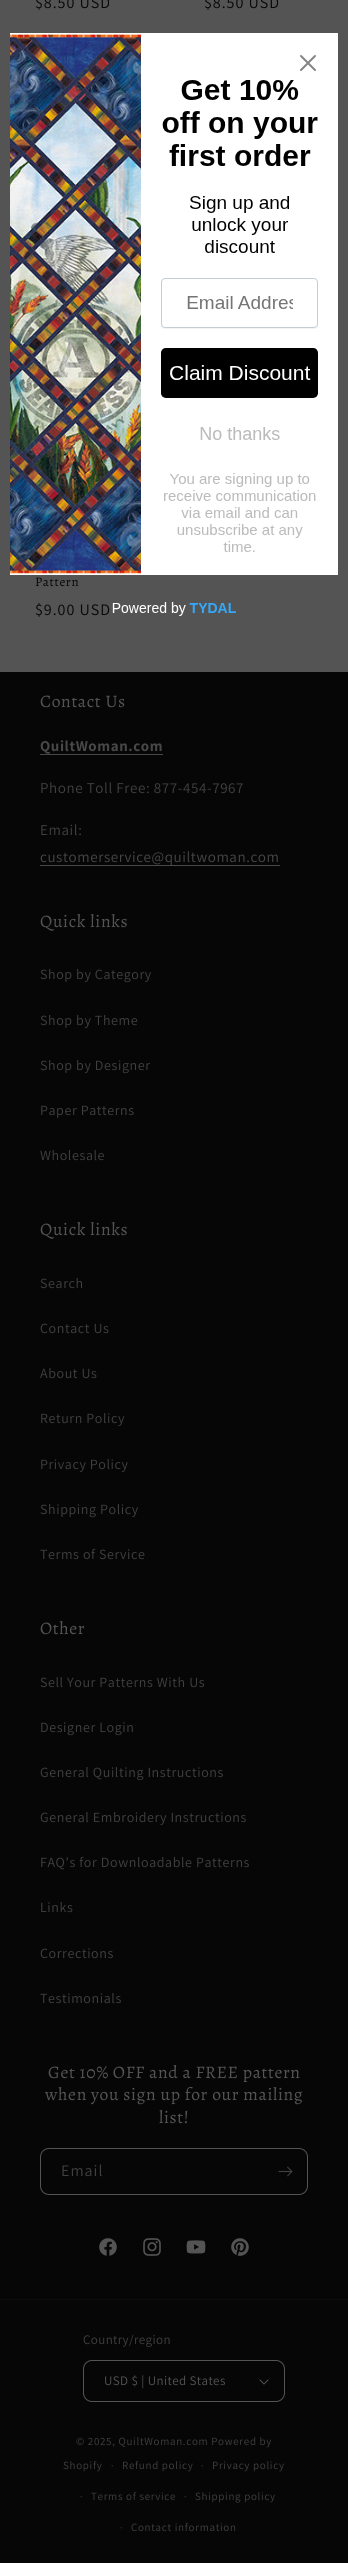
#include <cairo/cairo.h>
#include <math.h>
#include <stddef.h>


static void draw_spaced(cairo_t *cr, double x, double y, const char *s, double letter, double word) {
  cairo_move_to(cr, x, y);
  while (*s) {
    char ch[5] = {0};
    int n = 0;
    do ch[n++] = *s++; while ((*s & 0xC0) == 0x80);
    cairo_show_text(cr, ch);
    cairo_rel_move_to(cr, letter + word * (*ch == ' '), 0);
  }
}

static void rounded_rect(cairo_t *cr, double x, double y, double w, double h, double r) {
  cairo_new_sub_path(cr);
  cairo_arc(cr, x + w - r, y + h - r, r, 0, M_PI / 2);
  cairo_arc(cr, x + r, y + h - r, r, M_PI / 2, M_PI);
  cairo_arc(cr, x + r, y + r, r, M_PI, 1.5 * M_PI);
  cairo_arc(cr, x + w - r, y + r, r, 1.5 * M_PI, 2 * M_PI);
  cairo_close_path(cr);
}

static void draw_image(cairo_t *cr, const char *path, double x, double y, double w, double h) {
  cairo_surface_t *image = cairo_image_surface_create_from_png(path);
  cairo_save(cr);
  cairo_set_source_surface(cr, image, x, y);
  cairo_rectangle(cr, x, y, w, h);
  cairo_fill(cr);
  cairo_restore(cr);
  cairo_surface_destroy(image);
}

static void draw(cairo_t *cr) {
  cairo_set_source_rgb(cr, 1, 1, 1);
  cairo_paint(cr);
  cairo_set_source_rgb(cr, 18 / 255.0, 18 / 255.0, 18 / 255.0);
  cairo_rectangle(cr, 0, 672, 348, 1891);
  cairo_fill(cr);
  cairo_set_source_rgb(cr, 219 / 255.0, 219 / 255.0, 219 / 255.0);
  cairo_rectangle(cr, 40, 754, 123, 1);
  cairo_fill(cr);
  cairo_rectangle(cr, 40, 865, 240, 1);
  cairo_fill(cr);
  rounded_rect(cr, 40.5, 2148.5, 267, 46, 8.5);
  cairo_set_source_rgb(cr, 1, 1, 1);
  cairo_set_line_width(cr, 1);
  cairo_stroke(cr);
  draw_image(cr, "images/2.png", 278, 2166, 15, 11);
  draw_image(cr, "images/3.png", 99, 2238, 18, 18);
  draw_image(cr, "images/4.png", 143, 2238, 18, 18);
  draw_image(cr, "images/5.png", 186, 2240, 20, 14);
  draw_image(cr, "images/6.png", 231, 2238, 18, 18);
  cairo_set_source_rgb(cr, 37 / 255.0, 37 / 255.0, 37 / 255.0);
  cairo_rectangle(cr, 0, 2299, 348, 1);
  cairo_fill(cr);
  draw_image(cr, "images/7.png", 259, 2379, 10, 6);
  rounded_rect(cr, 83.5, 2360.5, 201, 41, 8.5);
  cairo_set_source_rgb(cr, 1, 1, 1);
  cairo_stroke(cr);
  cairo_select_font_face(cr, "Assistant", CAIRO_FONT_SLANT_NORMAL, CAIRO_FONT_WEIGHT_NORMAL);
  cairo_set_font_size(cr, 16);
  cairo_set_source_rgb(cr, 18 / 255.0, 18 / 255.0, 18 / 255.0);
  draw_spaced(cr, 35, 8, "$8.50 USD", 1, 0);
  draw_spaced(cr, 204, 8, "$8.50 USD", 1, 0);
  cairo_select_font_face(cr, "Alegreya", CAIRO_FONT_SLANT_NORMAL, CAIRO_FONT_WEIGHT_NORMAL);
  cairo_set_font_size(cr, 13);
  draw_spaced(cr, 35, 586, "Pattern", 0.65, 0);
  cairo_select_font_face(cr, "Assistant", CAIRO_FONT_SLANT_NORMAL, CAIRO_FONT_WEIGHT_NORMAL);
  cairo_set_font_size(cr, 16);
  draw_spaced(cr, 35, 615, "$9.00 USD", 1, 0);
  cairo_select_font_face(cr, "Alegreya", CAIRO_FONT_SLANT_NORMAL, CAIRO_FONT_WEIGHT_NORMAL);
  cairo_set_font_size(cr, 17.6);
  cairo_set_source_rgb(cr, 1, 1, 1);
  draw_spaced(cr, 40, 707, "Contact Us", 0.65, 0);
  cairo_select_font_face(cr, "Assistant", CAIRO_FONT_SLANT_NORMAL, CAIRO_FONT_WEIGHT_BOLD);
  cairo_set_font_size(cr, 15);
  cairo_set_source_rgb(cr, 219 / 255.0, 219 / 255.0, 219 / 255.0);
  draw_spaced(cr, 40, 751, "QuiltWoman.com", 0.6, 0);
  cairo_select_font_face(cr, "Assistant", CAIRO_FONT_SLANT_NORMAL, CAIRO_FONT_WEIGHT_NORMAL);
  cairo_set_source_rgb(cr, 196 / 255.0, 196 / 255.0, 196 / 255.0);
  draw_spaced(cr, 40, 793, "Phone Toll Free: 877-454-7967", 0.6, 0);
  draw_spaced(cr, 40, 835, "Email:", 0.6, 0);
  cairo_set_source_rgb(cr, 219 / 255.0, 219 / 255.0, 219 / 255.0);
  draw_spaced(cr, 40, 862, "customerservice@quiltwoman.com", 0.6, 0);
  cairo_select_font_face(cr, "Alegreya", CAIRO_FONT_SLANT_NORMAL, CAIRO_FONT_WEIGHT_NORMAL);
  cairo_set_font_size(cr, 17.6);
  cairo_set_source_rgb(cr, 1, 1, 1);
  draw_spaced(cr, 40, 927, "Quick links", 0.65, 0);
  cairo_select_font_face(cr, "Assistant", CAIRO_FONT_SLANT_NORMAL, CAIRO_FONT_WEIGHT_NORMAL);
  cairo_set_font_size(cr, 14);
  cairo_set_source_rgb(cr, 196 / 255.0, 196 / 255.0, 196 / 255.0);
  draw_spaced(cr, 40, 979, "Shop by Category", 0.6, 0);
  draw_spaced(cr, 40, 1025, "Shop by Theme", 0.6, 0);
  draw_spaced(cr, 40, 1070, "Shop by Designer", 0.6, 0);
  draw_spaced(cr, 40, 1115, "Paper Patterns", 0.6, 0);
  draw_spaced(cr, 40, 1160, "Wholesale", 0.6, 0);
  cairo_select_font_face(cr, "Alegreya", CAIRO_FONT_SLANT_NORMAL, CAIRO_FONT_WEIGHT_NORMAL);
  cairo_set_font_size(cr, 17.6);
  cairo_set_source_rgb(cr, 1, 1, 1);
  draw_spaced(cr, 40, 1235, "Quick links", 0.65, 0);
  cairo_select_font_face(cr, "Assistant", CAIRO_FONT_SLANT_NORMAL, CAIRO_FONT_WEIGHT_NORMAL);
  cairo_set_font_size(cr, 14);
  cairo_set_source_rgb(cr, 196 / 255.0, 196 / 255.0, 196 / 255.0);
  draw_spaced(cr, 40, 1288, "Search", 0.6, 0);
  draw_spaced(cr, 40, 1333, "Contact Us", 0.6, 0);
  draw_spaced(cr, 40, 1378, "About Us", 0.6, 0);
  draw_spaced(cr, 40, 1423, "Return Policy", 0.6, 0);
  draw_spaced(cr, 40, 1469, "Privacy Policy", 0.6, 0);
  draw_spaced(cr, 40, 1514, "Shipping Policy", 0.6, 0);
  draw_spaced(cr, 40, 1559, "Terms of Service", 0.6, 0);
  cairo_select_font_face(cr, "Alegreya", CAIRO_FONT_SLANT_NORMAL, CAIRO_FONT_WEIGHT_NORMAL);
  cairo_set_font_size(cr, 17.6);
  cairo_set_source_rgb(cr, 1, 1, 1);
  draw_spaced(cr, 40, 1634, "Other", 0.65, 0);
  cairo_select_font_face(cr, "Assistant", CAIRO_FONT_SLANT_NORMAL, CAIRO_FONT_WEIGHT_NORMAL);
  cairo_set_font_size(cr, 14);
  cairo_set_source_rgb(cr, 196 / 255.0, 196 / 255.0, 196 / 255.0);
  draw_spaced(cr, 40, 1687, "Sell Your Patterns With Us", 0.6, 0);
  draw_spaced(cr, 40, 1732, "Designer Login", 0.6, 0);
  draw_spaced(cr, 40, 1777, "General Quilting Instructions", 0.6, 0);
  draw_spaced(cr, 40, 1822, "General Embroidery Instructions", 0.6, 0);
  draw_spaced(cr, 40, 1867, "FAQ's for Downloadable Patterns", 0.6, 0);
  draw_spaced(cr, 40, 1912, "Links", 0.6, 0);
  draw_spaced(cr, 40, 1958, "Corrections", 0.6, 0);
  draw_spaced(cr, 40, 2003, "Testimonials", 0.6, 0);
  cairo_select_font_face(cr, "Alegreya", CAIRO_FONT_SLANT_NORMAL, CAIRO_FONT_WEIGHT_NORMAL);
  cairo_set_font_size(cr, 17.6);
  cairo_set_source_rgb(cr, 1, 1, 1);
  draw_spaced(cr, 48, 2078, "Get 10% OFF and a FREE pattern", 0.65, 0);
  draw_spaced(cr, 45, 2100, "when you sign up for our mailing", 0.65, 0);
  draw_spaced(cr, 159, 2123, "list!", 0.65, 0);
  cairo_select_font_face(cr, "Assistant", CAIRO_FONT_SLANT_NORMAL, CAIRO_FONT_WEIGHT_NORMAL);
  cairo_set_font_size(cr, 16);
  cairo_set_source_rgb(cr, 196 / 255.0, 196 / 255.0, 196 / 255.0);
  draw_spaced(cr, 61, 2176, "Email", 1, 0);
  cairo_set_font_size(cr, 13);
  draw_spaced(cr, 83, 2344, "Country/region", 0.4, 0);
  cairo_set_source_rgb(cr, 1, 1, 1);
  draw_spaced(cr, 104, 2385, "USD $ | United States", 0.4, 0);
  cairo_set_font_size(cr, 11);
  cairo_set_source_rgb(cr, 196 / 255.0, 196 / 255.0, 196 / 255.0);
  draw_spaced(cr, 76, 2445, "© 2025, QuiltWoman.com Powered by", 0.7, 0);
  draw_spaced(cr, 63, 2469, "Shopify", 0.7, 0);
  cairo_set_font_size(cr, 10);
  draw_spaced(cr, 111, 2469, "·", 0.7, 0);
  cairo_set_font_size(cr, 11);
  draw_spaced(cr, 122, 2469, "Refund policy", 0.7, 0);
  cairo_set_font_size(cr, 10);
  draw_spaced(cr, 201, 2469, "·", 0.7, 0);
  cairo_set_font_size(cr, 11);
  draw_spaced(cr, 212, 2469, "Privacy policy", 0.7, 0);
  cairo_set_font_size(cr, 10);
  draw_spaced(cr, 80, 2500, "·", 0.7, 0);
  cairo_set_font_size(cr, 11);
  draw_spaced(cr, 91, 2500, "Terms of service", 0.7, 0);
  cairo_set_font_size(cr, 10);
  draw_spaced(cr, 184, 2500, "·", 0.7, 0);
  cairo_set_font_size(cr, 11);
  draw_spaced(cr, 195, 2500, "Shipping policy", 0.7, 0);
  cairo_set_font_size(cr, 10);
  draw_spaced(cr, 120, 2531, "·", 0.7, 0);
  cairo_set_font_size(cr, 11);
  draw_spaced(cr, 131, 2531, "Contact information", 0.7, 0);
  draw_image(cr, "images/1.png", 0, 0, 348, 2563);
}

int main(void) {
  cairo_surface_t *surface = cairo_image_surface_create(CAIRO_FORMAT_RGB24, 348, 2563);
  cairo_t *cr = cairo_create(surface);
  cairo_font_options_t *options = cairo_font_options_create();
  cairo_font_options_set_hint_metrics(options, CAIRO_HINT_METRICS_OFF);
  cairo_font_options_set_hint_style(options, CAIRO_HINT_STYLE_NONE);
  cairo_set_font_options(cr, options);
  cairo_set_miter_limit(cr, 4);
  draw(cr);
  cairo_surface_write_to_png(surface, "out.png");
  cairo_font_options_destroy(options);
  cairo_destroy(cr);
  cairo_surface_destroy(surface);
  return 0;
}
